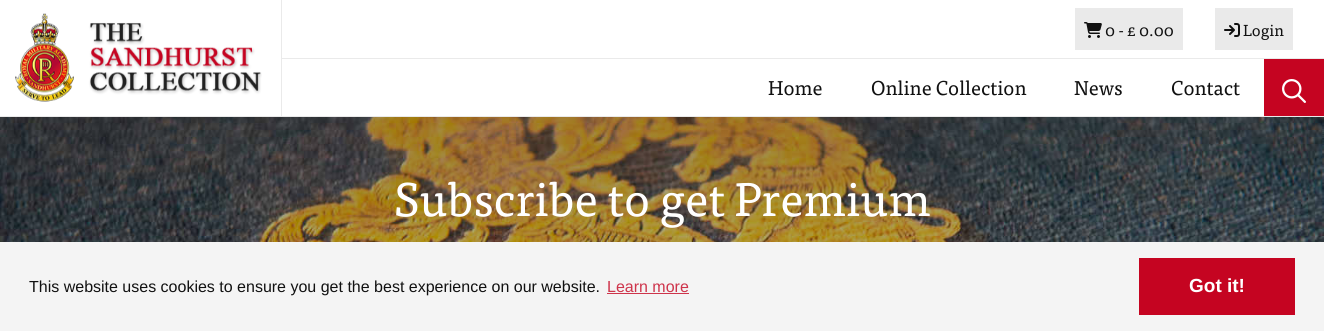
#include <cairo/cairo.h>
#include <math.h>
#include <stddef.h>


static void draw_image(cairo_t *cr, const char *path, double x, double y, double w, double h) {
  cairo_surface_t *image = cairo_image_surface_create_from_png(path);
  cairo_save(cr);
  cairo_set_source_surface(cr, image, x, y);
  cairo_rectangle(cr, x, y, w, h);
  cairo_fill(cr);
  cairo_restore(cr);
  cairo_surface_destroy(image);
}

static void draw(cairo_t *cr) {
  cairo_set_source_rgb(cr, 1, 1, 1);
  cairo_paint(cr);
  cairo_set_source_rgb(cr, 234 / 255.0, 234 / 255.0, 234 / 255.0);
  cairo_rectangle(cr, 0, 116, 1324, 1);
  cairo_fill(cr);
  cairo_rectangle(cr, 281, 0, 1, 116);
  cairo_fill(cr);
  draw_image(cr, "images/1.png", 15, 13, 247, 89);
  cairo_rectangle(cr, 1075, 8, 108, 42);
  cairo_fill(cr);
  draw_image(cr, "images/2.png", 1084, 22, 18, 16);
  cairo_rectangle(cr, 1215, 8, 78, 42);
  cairo_fill(cr);
  draw_image(cr, "images/3.png", 1224, 23, 16, 14);
  cairo_rectangle(cr, 282, 58, 1042, 1);
  cairo_fill(cr);
  cairo_set_source_rgb(cr, 197 / 255.0, 4 / 255.0, 33 / 255.0);
  cairo_rectangle(cr, 1264, 59, 60, 57);
  cairo_fill(cr);
  draw_image(cr, "images/4.png", 1282, 79, 24, 24);
  draw_image(cr, "images/5.png", 0, 117, 1324, 125);
  cairo_set_source_rgb(cr, 244 / 255.0, 244 / 255.0, 244 / 255.0);
  cairo_rectangle(cr, 0, 242, 1324, 89);
  cairo_fill(cr);
  cairo_set_source_rgb(cr, 206 / 255.0, 52 / 255.0, 75 / 255.0);
  cairo_rectangle(cr, 607, 293, 82, 1);
  cairo_fill(cr);
  cairo_set_source_rgb(cr, 197 / 255.0, 4 / 255.0, 33 / 255.0);
  cairo_rectangle(cr, 1139, 258, 156, 57);
  cairo_fill(cr);
  cairo_select_font_face(cr, "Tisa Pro", CAIRO_FONT_SLANT_NORMAL, CAIRO_FONT_WEIGHT_NORMAL);
  cairo_set_font_size(cr, 16);
  cairo_set_source_rgb(cr, 17 / 255.0, 17 / 255.0, 17 / 255.0);
  cairo_move_to(cr, 1105, 36);
  cairo_show_text(cr, "0 - £ 0.00");
  cairo_move_to(cr, 1243, 36);
  cairo_show_text(cr, "Login");
  cairo_set_font_size(cr, 20);
  cairo_move_to(cr, 768, 95);
  cairo_show_text(cr, "Home");
  cairo_move_to(cr, 871, 95);
  cairo_show_text(cr, "Online Collection");
  cairo_move_to(cr, 1074, 95);
  cairo_show_text(cr, "News");
  cairo_move_to(cr, 1171, 95);
  cairo_show_text(cr, "Contact");
  cairo_set_font_size(cr, 47);
  cairo_set_source_rgb(cr, 1, 1, 1);
  cairo_move_to(cr, 394, 216);
  cairo_show_text(cr, "Subscribe to get Premium");
  cairo_select_font_face(cr, "Liberation Sans", CAIRO_FONT_SLANT_NORMAL, CAIRO_FONT_WEIGHT_NORMAL);
  cairo_set_font_size(cr, 16);
  cairo_set_source_rgb(cr, 17 / 255.0, 17 / 255.0, 17 / 255.0);
  cairo_move_to(cr, 29, 292);
  cairo_show_text(cr, "This website uses cookies to ensure you get the best experience on our website.");
  cairo_set_source_rgb(cr, 206 / 255.0, 52 / 255.0, 75 / 255.0);
  cairo_move_to(cr, 607, 292);
  cairo_show_text(cr, "Learn more");
  cairo_select_font_face(cr, "Liberation Sans", CAIRO_FONT_SLANT_NORMAL, CAIRO_FONT_WEIGHT_BOLD);
  cairo_set_font_size(cr, 19);
  cairo_set_source_rgb(cr, 1, 1, 1);
  cairo_move_to(cr, 1189, 292);
  cairo_show_text(cr, "Got it!");
}

int main(void) {
  cairo_surface_t *surface = cairo_image_surface_create(CAIRO_FORMAT_RGB24, 1324, 331);
  cairo_t *cr = cairo_create(surface);
  cairo_font_options_t *options = cairo_font_options_create();
  cairo_font_options_set_hint_metrics(options, CAIRO_HINT_METRICS_OFF);
  cairo_font_options_set_hint_style(options, CAIRO_HINT_STYLE_NONE);
  cairo_set_font_options(cr, options);
  cairo_set_miter_limit(cr, 4);
  draw(cr);
  cairo_surface_write_to_png(surface, "out.png");
  cairo_font_options_destroy(options);
  cairo_destroy(cr);
  cairo_surface_destroy(surface);
  return 0;
}
